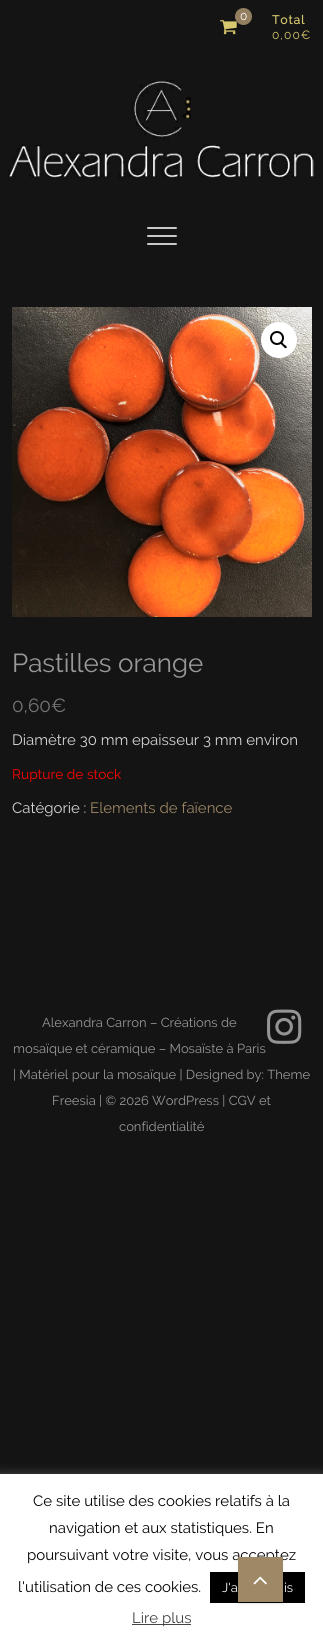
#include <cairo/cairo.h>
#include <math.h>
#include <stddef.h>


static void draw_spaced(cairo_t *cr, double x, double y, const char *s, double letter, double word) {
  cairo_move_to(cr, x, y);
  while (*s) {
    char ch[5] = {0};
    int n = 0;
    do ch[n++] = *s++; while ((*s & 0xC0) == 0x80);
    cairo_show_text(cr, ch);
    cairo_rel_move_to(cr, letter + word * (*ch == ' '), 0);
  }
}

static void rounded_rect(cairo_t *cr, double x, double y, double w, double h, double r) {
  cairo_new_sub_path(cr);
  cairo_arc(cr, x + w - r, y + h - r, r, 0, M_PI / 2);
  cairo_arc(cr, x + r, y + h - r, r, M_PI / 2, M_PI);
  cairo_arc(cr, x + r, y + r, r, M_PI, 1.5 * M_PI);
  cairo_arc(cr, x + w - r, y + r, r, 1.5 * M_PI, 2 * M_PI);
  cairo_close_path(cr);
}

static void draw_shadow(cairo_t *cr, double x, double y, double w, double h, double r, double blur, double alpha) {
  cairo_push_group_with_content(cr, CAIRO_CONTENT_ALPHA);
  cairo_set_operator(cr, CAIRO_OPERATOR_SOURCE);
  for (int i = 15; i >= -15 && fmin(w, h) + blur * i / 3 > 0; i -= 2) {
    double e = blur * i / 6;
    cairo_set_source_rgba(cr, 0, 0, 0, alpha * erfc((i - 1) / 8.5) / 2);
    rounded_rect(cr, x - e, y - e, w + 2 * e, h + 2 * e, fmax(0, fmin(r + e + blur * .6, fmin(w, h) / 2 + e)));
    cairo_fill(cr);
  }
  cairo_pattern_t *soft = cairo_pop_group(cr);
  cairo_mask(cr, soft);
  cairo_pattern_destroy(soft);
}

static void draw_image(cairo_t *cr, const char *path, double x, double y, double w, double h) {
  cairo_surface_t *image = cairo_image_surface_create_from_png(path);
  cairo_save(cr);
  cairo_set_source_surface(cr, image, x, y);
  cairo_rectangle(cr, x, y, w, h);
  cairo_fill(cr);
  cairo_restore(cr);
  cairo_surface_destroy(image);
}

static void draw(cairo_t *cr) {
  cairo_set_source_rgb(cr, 20 / 255.0, 20 / 255.0, 20 / 255.0);
  cairo_paint(cr);
  draw_image(cr, "images/1.png", 220, 20, 17, 15);
  cairo_set_source_rgb(cr, 147 / 255.0, 127 / 255.0, 96 / 255.0);
  cairo_arc(cr, 243.5, 16.5, 8.5, 0, 2 * M_PI);
  cairo_fill(cr);
  draw_image(cr, "images/2.png", 8, 79, 306, 99);
  cairo_set_source_rgb(cr, 201 / 255.0, 201 / 255.0, 201 / 255.0);
  rounded_rect(cr, 147, 235, 30, 2, 1);
  cairo_fill(cr);
  rounded_rect(cr, 147, 227, 30, 2, 1);
  cairo_fill(cr);
  rounded_rect(cr, 147, 243, 30, 2, 1);
  cairo_fill(cr);
  draw_image(cr, "images/3.png", 12, 307, 300, 310);
  cairo_set_source_rgb(cr, 1, 1, 1);
  cairo_arc(cr, 279, 340, 18, 0, 2 * M_PI);
  cairo_fill(cr);
  cairo_arc(cr, 277, 338, 6, 0, 2 * M_PI);
  cairo_set_source_rgb(cr, 0, 0, 0);
  cairo_stroke(cr);
  cairo_new_path(cr);
  cairo_move_to(cr, 280.5, 342);
  cairo_curve_to(cr, 282, 341, 283.5, 344, 284, 344.5);
  cairo_curve_to(cr, 285, 345, 287.5, 346.5, 286.5, 348);
  cairo_curve_to(cr, 285, 349, 283.5, 346.5, 283, 346);
  cairo_curve_to(cr, 282, 345, 279.5, 343.5, 280.5, 342);
  cairo_close_path(cr);
  cairo_fill(cr);
  draw_image(cr, "images/4.png", 267, 1009, 35, 35);
  cairo_set_source_rgb(cr, 172 / 255.0, 171 / 255.0, 171 / 255.0);
  draw_shadow(cr, 0, 1473, 323, 168, 0, 5, 0.3);
  cairo_set_source_rgb(cr, 1, 1, 1);
  cairo_rectangle(cr, 0, 1474, 323, 168);
  cairo_fill(cr);
  cairo_set_source_rgb(cr, 0, 0, 0);
  cairo_rectangle(cr, 210, 1572, 95, 31);
  cairo_fill(cr);
  cairo_set_source_rgb(cr, 0, 0, 0);
  draw_shadow(cr, 238, 1559, 45, 45, 0, 1.5, 0.08);
  cairo_set_source_rgb(cr, 68 / 255.0, 68 / 255.0, 68 / 255.0);
  cairo_rectangle(cr, 132, 1624, 59, 1);
  cairo_fill(cr);
  cairo_select_font_face(cr, "Raleway", CAIRO_FONT_SLANT_NORMAL, CAIRO_FONT_WEIGHT_NORMAL);
  cairo_set_font_size(cr, 12);
  cairo_set_source_rgb(cr, 1, 1, 1);
  cairo_move_to(cr, 240, 20);
  cairo_show_text(cr, "0");
  cairo_select_font_face(cr, "Raleway", CAIRO_FONT_SLANT_NORMAL, CAIRO_FONT_WEIGHT_BOLD);
  cairo_set_source_rgb(cr, 216 / 255.0, 200 / 255.0, 110 / 255.0);
  draw_spaced(cr, 272, 24, "Total", 1, 0);
  cairo_select_font_face(cr, "Raleway", CAIRO_FONT_SLANT_NORMAL, CAIRO_FONT_WEIGHT_NORMAL);
  draw_spaced(cr, 272, 39, "0,00€", 1, 0);
  cairo_set_font_size(cr, 26);
  cairo_set_source_rgb(cr, 153 / 255.0, 153 / 255.0, 153 / 255.0);
  cairo_move_to(cr, 12, 672);
  cairo_show_text(cr, "Pastilles orange");
  cairo_set_font_size(cr, 19);
  cairo_set_source_rgb(cr, 116 / 255.0, 116 / 255.0, 116 / 255.0);
  cairo_move_to(cr, 12, 712);
  cairo_show_text(cr, "0,60€");
  cairo_set_font_size(cr, 15);
  cairo_set_source_rgb(cr, 214 / 255.0, 214 / 255.0, 214 / 255.0);
  cairo_move_to(cr, 12, 745);
  cairo_show_text(cr, "Diamètre 30 mm epaisseur 3 mm environ");
  cairo_set_font_size(cr, 13.75);
  cairo_set_source_rgb(cr, 1, 0, 0);
  cairo_move_to(cr, 12, 779);
  cairo_show_text(cr, "Rupture de stock");
  cairo_set_font_size(cr, 15);
  cairo_set_source_rgb(cr, 214 / 255.0, 214 / 255.0, 214 / 255.0);
  cairo_move_to(cr, 12, 813);
  cairo_show_text(cr, "Catégorie :");
  cairo_set_source_rgb(cr, 155 / 255.0, 133 / 255.0, 101 / 255.0);
  cairo_move_to(cr, 90, 813);
  cairo_show_text(cr, "Elements de faïence");
  cairo_set_font_size(cr, 13);
  cairo_set_source_rgb(cr, 153 / 255.0, 153 / 255.0, 153 / 255.0);
  cairo_move_to(cr, 42, 1027);
  cairo_show_text(cr, "Alexandra Carron – Créations de");
  cairo_move_to(cr, 13, 1053);
  cairo_show_text(cr, "mosaïque et céramique – Mosaïste à Paris");
  cairo_move_to(cr, 13, 1079);
  cairo_show_text(cr, "| Matériel pour la mosaïque | Designed by: Theme");
  cairo_move_to(cr, 52, 1105);
  cairo_show_text(cr, "Freesia | © 2026 WordPress | CGV et");
  cairo_move_to(cr, 119, 1131);
  cairo_show_text(cr, "confidentialité");
  cairo_set_font_size(cr, 15);
  cairo_set_source_rgb(cr, 0, 0, 0);
  cairo_move_to(cr, 33, 1506);
  cairo_show_text(cr, "Ce site utilise des cookies relatifs à la");
  cairo_move_to(cr, 49, 1533);
  cairo_show_text(cr, "navigation et aux statistiques. En");
  cairo_move_to(cr, 27, 1560);
  cairo_show_text(cr, "poursuivant votre visite, vous acceptez");
  cairo_set_source_rgb(cr, 158 / 255.0, 136 / 255.0, 102 / 255.0);
  cairo_rectangle(cr, 238, 1557, 45, 45);
  cairo_fill(cr);
  draw_image(cr, "images/5.png", 253, 1576, 14, 9);
  cairo_set_source_rgb(cr, 0, 0, 0);
  cairo_move_to(cr, 18, 1592);
  cairo_show_text(cr, "l'utilisation de ces cookies.");
  cairo_set_font_size(cr, 13);
  cairo_set_source_rgb(cr, 1, 1, 1);
  cairo_move_to(cr, 222, 1592);
  cairo_show_text(cr, "J'a");
  cairo_move_to(cr, 284, 1592);
  cairo_show_text(cr, "is");
  cairo_set_font_size(cr, 15);
  cairo_set_source_rgb(cr, 68 / 255.0, 68 / 255.0, 68 / 255.0);
  cairo_move_to(cr, 132, 1623);
  cairo_show_text(cr, "Lire plus");
}

int main(void) {
  cairo_surface_t *surface = cairo_image_surface_create(CAIRO_FORMAT_RGB24, 323, 1642);
  cairo_t *cr = cairo_create(surface);
  cairo_font_options_t *options = cairo_font_options_create();
  cairo_font_options_set_hint_metrics(options, CAIRO_HINT_METRICS_OFF);
  cairo_font_options_set_hint_style(options, CAIRO_HINT_STYLE_NONE);
  cairo_set_font_options(cr, options);
  cairo_set_miter_limit(cr, 4);
  draw(cr);
  cairo_surface_write_to_png(surface, "out.png");
  cairo_font_options_destroy(options);
  cairo_destroy(cr);
  cairo_surface_destroy(surface);
  return 0;
}
